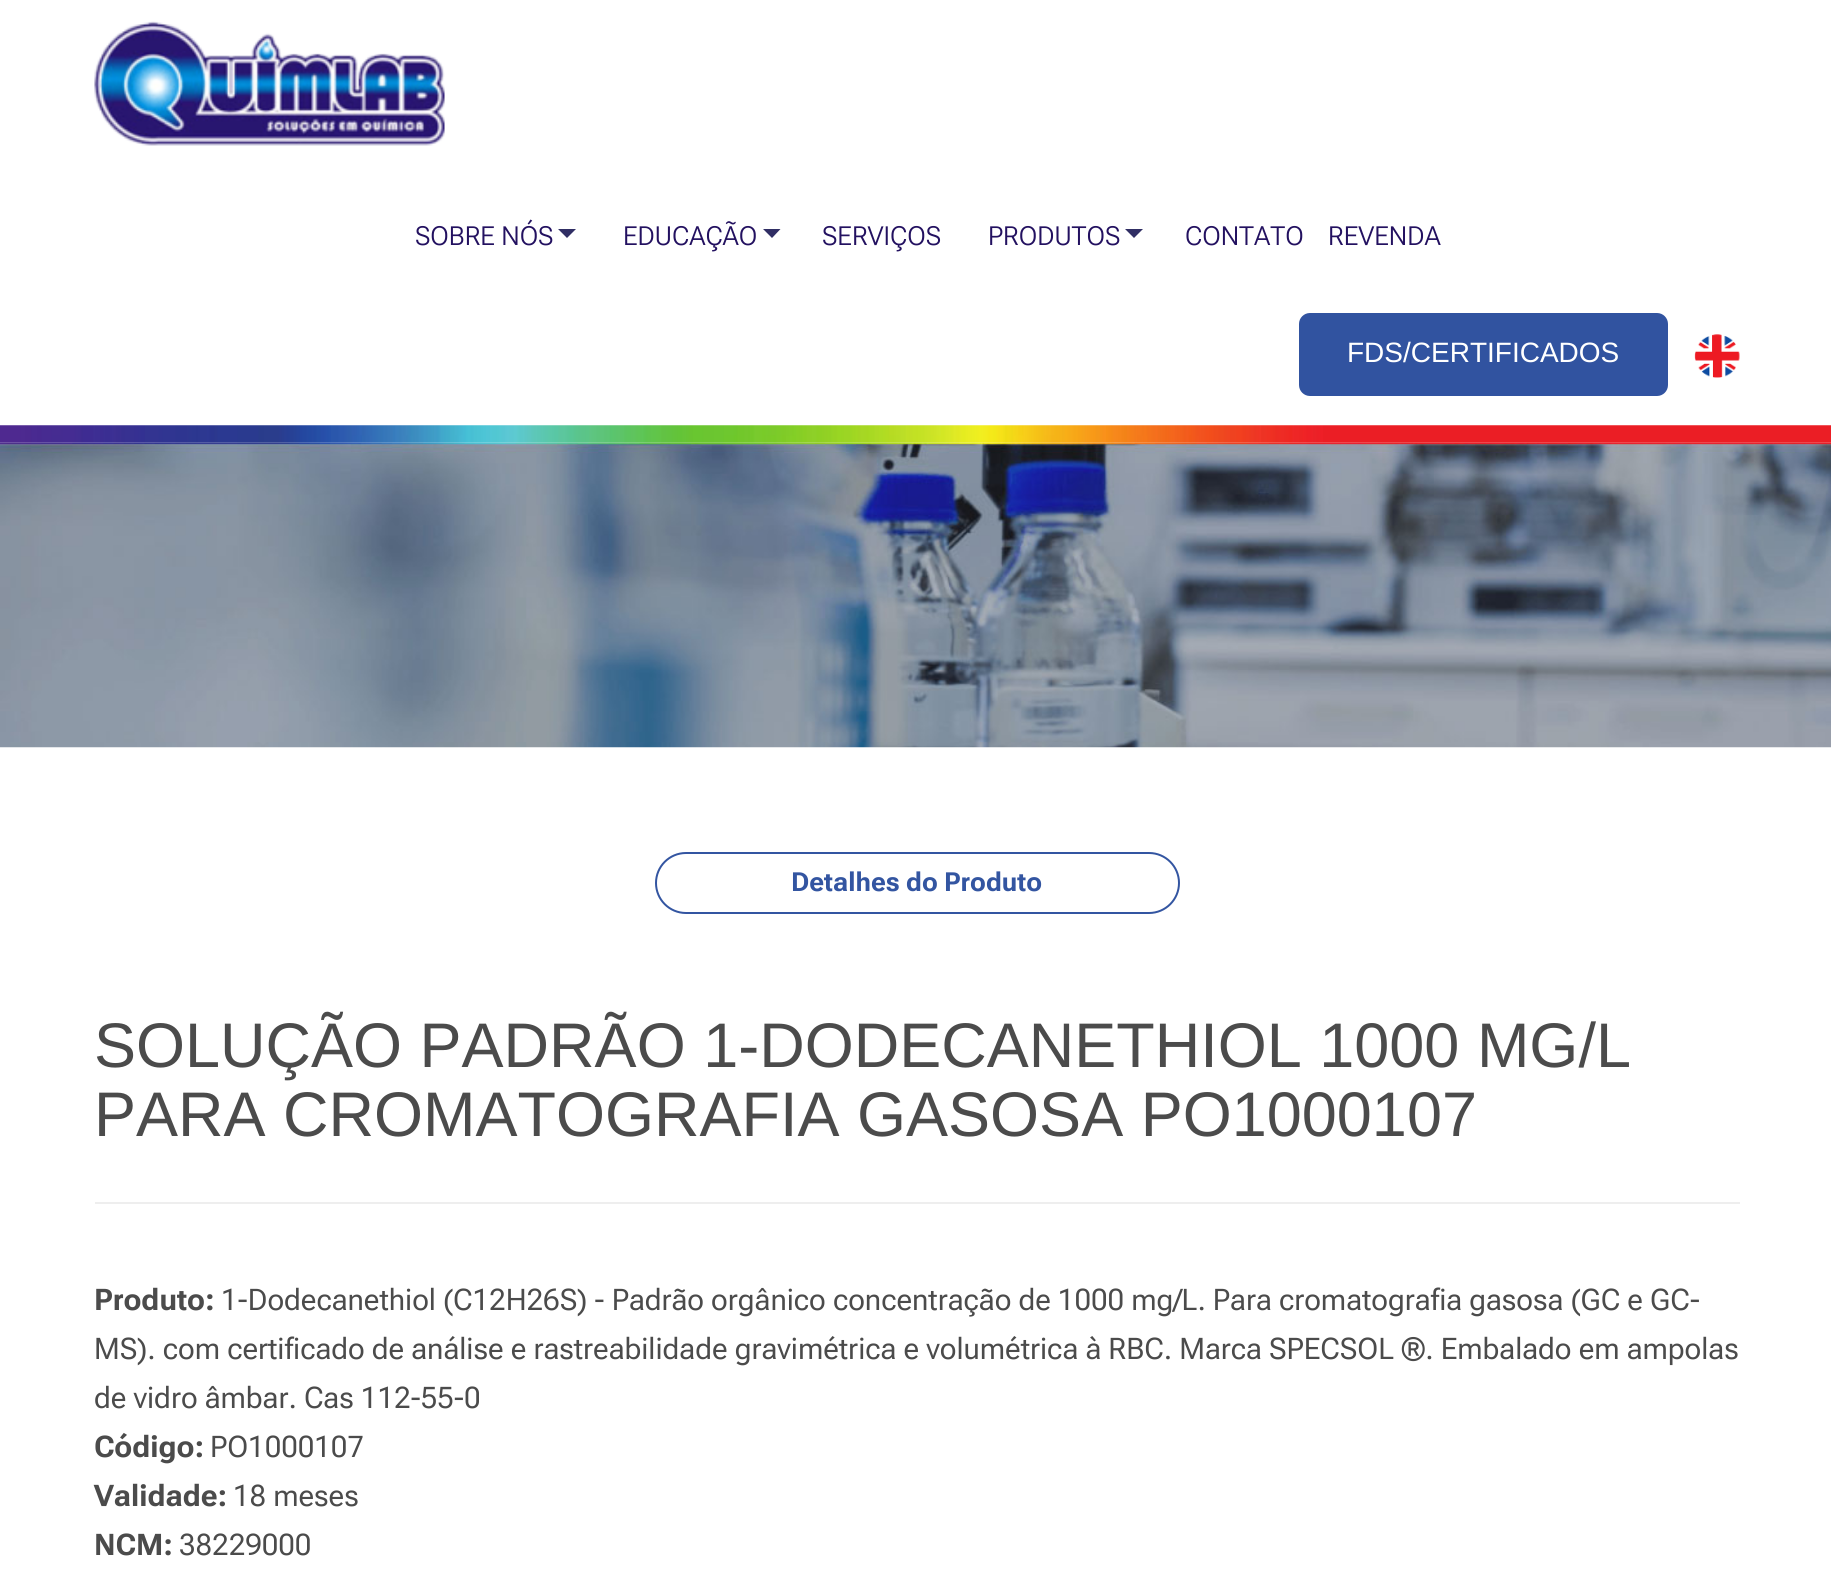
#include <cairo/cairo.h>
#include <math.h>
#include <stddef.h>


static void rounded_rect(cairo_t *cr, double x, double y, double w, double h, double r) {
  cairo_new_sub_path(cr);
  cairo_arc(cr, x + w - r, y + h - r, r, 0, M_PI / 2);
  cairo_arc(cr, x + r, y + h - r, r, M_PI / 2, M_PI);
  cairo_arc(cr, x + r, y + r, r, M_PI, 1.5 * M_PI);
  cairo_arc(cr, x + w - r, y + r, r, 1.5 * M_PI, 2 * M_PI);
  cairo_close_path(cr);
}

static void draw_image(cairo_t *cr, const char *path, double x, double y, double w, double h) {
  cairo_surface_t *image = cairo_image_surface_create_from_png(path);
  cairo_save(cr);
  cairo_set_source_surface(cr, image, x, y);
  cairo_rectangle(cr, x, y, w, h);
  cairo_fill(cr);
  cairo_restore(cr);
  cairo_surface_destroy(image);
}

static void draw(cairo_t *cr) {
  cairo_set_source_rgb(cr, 1, 1, 1);
  cairo_paint(cr);
  draw_image(cr, "images/1.png", 94, 21, 351, 125);
  cairo_set_source_rgb(cr, 48 / 255.0, 46 / 255.0, 100 / 255.0);
  cairo_new_path(cr);
  cairo_move_to(cr, 558, 229);
  cairo_line_to(cr, 576, 229);
  cairo_line_to(cr, 567, 238);
  cairo_close_path(cr);
  cairo_fill(cr);
  cairo_new_path(cr);
  cairo_move_to(cr, 763, 229);
  cairo_line_to(cr, 780.5, 229);
  cairo_line_to(cr, 772, 238);
  cairo_close_path(cr);
  cairo_fill(cr);
  cairo_new_path(cr);
  cairo_move_to(cr, 1125, 229);
  cairo_line_to(cr, 1143, 229);
  cairo_line_to(cr, 1134, 238);
  cairo_close_path(cr);
  cairo_fill(cr);
  cairo_set_source_rgb(cr, 49 / 255.0, 83 / 255.0, 160 / 255.0);
  rounded_rect(cr, 1299, 313, 369, 83, 11);
  cairo_fill(cr);
  draw_image(cr, "images/2.png", 1694, 334, 46, 44);
  draw_image(cr, "images/3.png", 0, 425, 1831, 18);
  draw_image(cr, "images/4.png", 0, 442, 1831, 306);
  rounded_rect(cr, 656, 853, 523, 60, 30);
  cairo_set_source_rgb(cr, 51 / 255.0, 85 / 255.0, 161 / 255.0);
  cairo_stroke(cr);
  cairo_set_source_rgb(cr, 238 / 255.0, 238 / 255.0, 238 / 255.0);
  cairo_rectangle(cr, 95, 1202, 1645, 2);
  cairo_fill(cr);
  cairo_select_font_face(cr, "Roboto Flex Light", CAIRO_FONT_SLANT_NORMAL, CAIRO_FONT_WEIGHT_NORMAL);
  cairo_set_font_size(cr, 26.25);
  cairo_set_source_rgb(cr, 35 / 255.0, 17 / 255.0, 96 / 255.0);
  cairo_move_to(cr, 415, 245);
  cairo_show_text(cr, "SOBRE NÓS");
  cairo_move_to(cr, 623, 245);
  cairo_show_text(cr, "EDUCAÇÃO");
  cairo_move_to(cr, 822, 245);
  cairo_show_text(cr, "SERVIÇOS");
  cairo_move_to(cr, 988, 245);
  cairo_show_text(cr, "PRODUTOS");
  cairo_move_to(cr, 1185, 245);
  cairo_show_text(cr, "CONTATO");
  cairo_move_to(cr, 1328, 245);
  cairo_show_text(cr, "REVENDA");
  cairo_select_font_face(cr, "Liberation Sans", CAIRO_FONT_SLANT_NORMAL, CAIRO_FONT_WEIGHT_NORMAL);
  cairo_set_font_size(cr, 28);
  cairo_set_source_rgb(cr, 1, 1, 1);
  cairo_move_to(cr, 1347, 362);
  cairo_show_text(cr, "FDS/CERTIFICADOS");
  cairo_select_font_face(cr, "Roboto Flex", CAIRO_FONT_SLANT_NORMAL, CAIRO_FONT_WEIGHT_BOLD);
  cairo_set_font_size(cr, 26.25);
  cairo_set_source_rgb(cr, 51 / 255.0, 85 / 255.0, 161 / 255.0);
  cairo_move_to(cr, 791, 891);
  cairo_show_text(cr, "Detalhes do Produto");
  cairo_select_font_face(cr, "Liberation Sans", CAIRO_FONT_SLANT_NORMAL, CAIRO_FONT_WEIGHT_NORMAL);
  cairo_set_font_size(cr, 63);
  cairo_set_source_rgb(cr, 75 / 255.0, 75 / 255.0, 75 / 255.0);
  cairo_move_to(cr, 94, 1067);
  cairo_show_text(cr, "SOLUÇÃO PADRÃO 1-DODECANETHIOL 1000 MG/L");
  cairo_move_to(cr, 94, 1136);
  cairo_show_text(cr, "PARA CROMATOGRAFIA GASOSA PO1000107");
  cairo_select_font_face(cr, "Roboto Flex", CAIRO_FONT_SLANT_NORMAL, CAIRO_FONT_WEIGHT_BOLD);
  cairo_set_font_size(cr, 29.75);
  cairo_move_to(cr, 94, 1310);
  cairo_show_text(cr, "Produto:");
  cairo_select_font_face(cr, "Roboto Flex", CAIRO_FONT_SLANT_NORMAL, CAIRO_FONT_WEIGHT_NORMAL);
  cairo_move_to(cr, 221, 1310);
  cairo_show_text(cr, "1-Dodecanethiol (C12H26S) - Padrão orgânico concentração de 1000 mg/L. Para cromatografia gasosa (GC e GC-");
  cairo_move_to(cr, 94, 1359);
  cairo_show_text(cr, "MS). com certificado de análise e rastreabilidade gravimétrica e volumétrica à RBC. Marca SPECSOL ®. Embalado em ampolas");
  cairo_move_to(cr, 94, 1408);
  cairo_show_text(cr, "de vidro âmbar. Cas 112-55-0");
  cairo_select_font_face(cr, "Roboto Flex", CAIRO_FONT_SLANT_NORMAL, CAIRO_FONT_WEIGHT_BOLD);
  cairo_move_to(cr, 94, 1457);
  cairo_show_text(cr, "Código:");
  cairo_select_font_face(cr, "Roboto Flex", CAIRO_FONT_SLANT_NORMAL, CAIRO_FONT_WEIGHT_NORMAL);
  cairo_move_to(cr, 210, 1457);
  cairo_show_text(cr, "PO1000107");
  cairo_select_font_face(cr, "Roboto Flex", CAIRO_FONT_SLANT_NORMAL, CAIRO_FONT_WEIGHT_BOLD);
  cairo_move_to(cr, 94, 1506);
  cairo_show_text(cr, "Validade:");
  cairo_select_font_face(cr, "Roboto Flex", CAIRO_FONT_SLANT_NORMAL, CAIRO_FONT_WEIGHT_NORMAL);
  cairo_move_to(cr, 233, 1506);
  cairo_show_text(cr, "18 meses");
  cairo_select_font_face(cr, "Roboto Flex", CAIRO_FONT_SLANT_NORMAL, CAIRO_FONT_WEIGHT_BOLD);
  cairo_move_to(cr, 94, 1555);
  cairo_show_text(cr, "NCM:");
  cairo_select_font_face(cr, "Roboto Flex", CAIRO_FONT_SLANT_NORMAL, CAIRO_FONT_WEIGHT_NORMAL);
  cairo_move_to(cr, 179, 1555);
  cairo_show_text(cr, "38229000");
}

int main(void) {
  cairo_surface_t *surface = cairo_image_surface_create(CAIRO_FORMAT_RGB24, 1831, 1580);
  cairo_t *cr = cairo_create(surface);
  cairo_font_options_t *options = cairo_font_options_create();
  cairo_font_options_set_hint_metrics(options, CAIRO_HINT_METRICS_OFF);
  cairo_font_options_set_hint_style(options, CAIRO_HINT_STYLE_NONE);
  cairo_set_font_options(cr, options);
  cairo_set_miter_limit(cr, 4);
  draw(cr);
  cairo_surface_write_to_png(surface, "out.png");
  cairo_font_options_destroy(options);
  cairo_destroy(cr);
  cairo_surface_destroy(surface);
  return 0;
}
